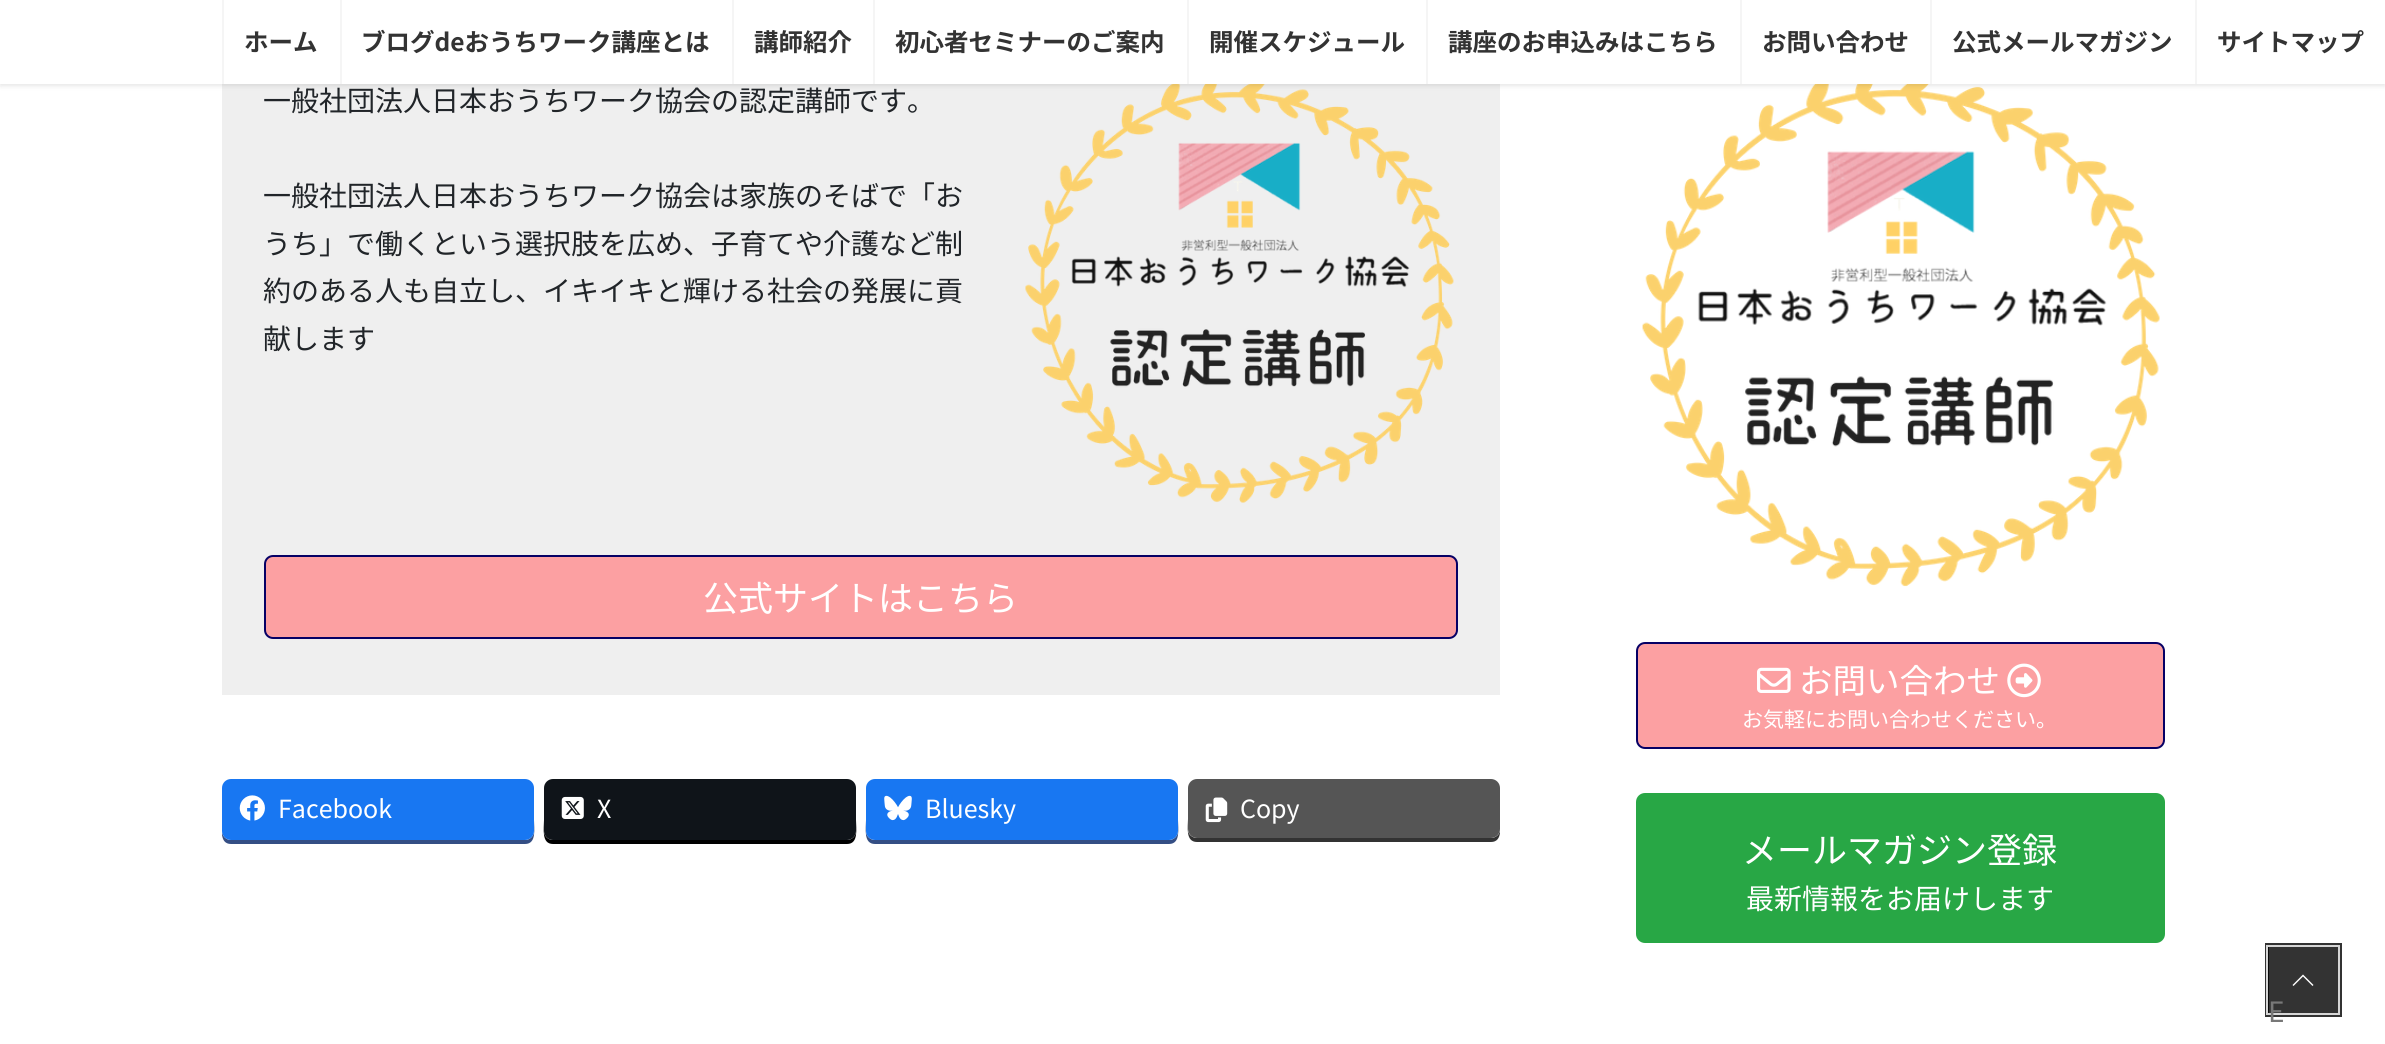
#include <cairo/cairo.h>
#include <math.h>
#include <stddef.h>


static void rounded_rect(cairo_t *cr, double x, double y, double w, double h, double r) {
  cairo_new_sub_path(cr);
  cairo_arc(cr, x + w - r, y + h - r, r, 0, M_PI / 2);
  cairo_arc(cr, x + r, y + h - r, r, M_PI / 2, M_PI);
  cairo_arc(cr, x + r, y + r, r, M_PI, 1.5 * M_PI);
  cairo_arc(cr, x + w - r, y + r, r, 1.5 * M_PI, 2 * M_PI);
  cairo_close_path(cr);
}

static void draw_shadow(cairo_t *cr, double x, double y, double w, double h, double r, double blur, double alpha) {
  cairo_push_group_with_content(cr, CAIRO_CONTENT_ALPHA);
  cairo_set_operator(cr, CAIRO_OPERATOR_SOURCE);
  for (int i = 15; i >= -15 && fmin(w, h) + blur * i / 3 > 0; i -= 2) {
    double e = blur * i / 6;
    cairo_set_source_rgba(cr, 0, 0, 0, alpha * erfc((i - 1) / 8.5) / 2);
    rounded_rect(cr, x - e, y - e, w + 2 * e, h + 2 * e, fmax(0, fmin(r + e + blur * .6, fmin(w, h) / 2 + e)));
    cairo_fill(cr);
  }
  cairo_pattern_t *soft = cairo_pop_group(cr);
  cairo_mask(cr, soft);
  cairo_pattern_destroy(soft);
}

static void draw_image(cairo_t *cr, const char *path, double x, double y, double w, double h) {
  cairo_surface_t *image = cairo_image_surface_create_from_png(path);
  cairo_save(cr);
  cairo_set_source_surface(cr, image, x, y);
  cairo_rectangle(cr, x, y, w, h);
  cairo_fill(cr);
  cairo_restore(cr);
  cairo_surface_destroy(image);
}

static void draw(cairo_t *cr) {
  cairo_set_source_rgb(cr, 1, 1, 1);
  cairo_paint(cr);
  cairo_set_source_rgb(cr, 239 / 255.0, 239 / 255.0, 239 / 255.0);
  cairo_rectangle(cr, 222, 84, 1278, 611);
  cairo_fill(cr);
  draw_image(cr, "images/1.png", 1025, 84, 429, 419);
  draw_image(cr, "images/6.png", 1642, 84, 518, 503);
  cairo_set_source_rgb(cr, 0, 0, 0);
  draw_shadow(cr, 0, 2, 2385, 84, 0, 2.5, 0.1);
  cairo_set_source_rgb(cr, 1, 1, 1);
  cairo_rectangle(cr, 0, 0, 2385, 84);
  cairo_fill(cr);
  cairo_set_source_rgb(cr, 245 / 255.0, 245 / 255.0, 245 / 255.0);
  cairo_rectangle(cr, 222, 0, 2, 84);
  cairo_fill(cr);
  cairo_rectangle(cr, 340, 0, 2, 84);
  cairo_fill(cr);
  cairo_rectangle(cr, 732, 0, 2, 84);
  cairo_fill(cr);
  cairo_rectangle(cr, 873, 0, 2, 84);
  cairo_fill(cr);
  cairo_rectangle(cr, 1187, 0, 2, 84);
  cairo_fill(cr);
  cairo_rectangle(cr, 1426, 0, 2, 84);
  cairo_fill(cr);
  cairo_rectangle(cr, 1740, 0, 2, 84);
  cairo_fill(cr);
  cairo_rectangle(cr, 1930, 0, 2, 84);
  cairo_fill(cr);
  cairo_rectangle(cr, 2195, 0, 2, 84);
  cairo_fill(cr);
  cairo_set_source_rgb(cr, 252 / 255.0, 160 / 255.0, 162 / 255.0);
  rounded_rect(cr, 265, 556, 1192, 82, 8);
  cairo_fill_preserve(cr);
  cairo_set_source_rgb(cr, 6 / 255.0, 0, 101 / 255.0);
  cairo_stroke(cr);
  cairo_save(cr);
  cairo_rectangle(cr, 222, 779, 1278, 66);
  cairo_clip(cr);
  cairo_set_source_rgb(cr, 52 / 255.0, 78 / 255.0, 132 / 255.0);
  cairo_new_path(cr);
  cairo_move_to(cr, 222, 789);
  cairo_line_to(cr, 222, 820);
  cairo_curve_to(cr, 222, 828, 219, 844, 231, 844);
  cairo_line_to(cr, 525, 844);
  cairo_curve_to(cr, 537, 844, 534, 828, 534, 820);
  cairo_line_to(cr, 534, 789);
  cairo_line_to(cr, 534, 831);
  cairo_curve_to(cr, 534, 836, 530, 840, 525, 840);
  cairo_line_to(cr, 231, 840);
  cairo_curve_to(cr, 226, 840, 222, 836, 222, 831);
  cairo_close_path(cr);
  cairo_fill(cr);
  cairo_restore(cr);
  cairo_set_source_rgb(cr, 24 / 255.0, 119 / 255.0, 242 / 255.0);
  rounded_rect(cr, 222, 779, 312, 61, 9);
  cairo_fill(cr);
  draw_image(cr, "images/2.png", 239, 795, 26, 26);
  cairo_set_source_rgb(cr, 0, 0, 0);
  cairo_new_path(cr);
  cairo_move_to(cr, 544, 789);
  cairo_line_to(cr, 544, 820);
  cairo_curve_to(cr, 544, 828, 541, 844, 553, 844);
  cairo_line_to(cr, 847, 844);
  cairo_curve_to(cr, 859, 844, 856, 828, 856, 820);
  cairo_line_to(cr, 856, 789);
  cairo_line_to(cr, 856, 831);
  cairo_curve_to(cr, 856, 836, 852, 840, 847, 840);
  cairo_line_to(cr, 553, 840);
  cairo_curve_to(cr, 548, 840, 544, 836, 544, 831);
  cairo_close_path(cr);
  cairo_fill(cr);
  cairo_set_source_rgb(cr, 15 / 255.0, 20 / 255.0, 25 / 255.0);
  rounded_rect(cr, 544, 779, 312, 61, 9);
  cairo_fill(cr);
  draw_image(cr, "images/3.png", 561, 796, 23, 23);
  cairo_set_source_rgb(cr, 52 / 255.0, 78 / 255.0, 132 / 255.0);
  cairo_new_path(cr);
  cairo_move_to(cr, 866, 789);
  cairo_line_to(cr, 866, 820);
  cairo_curve_to(cr, 866, 828, 863, 844, 875, 844);
  cairo_line_to(cr, 1169, 844);
  cairo_curve_to(cr, 1181, 844, 1178, 828, 1178, 820);
  cairo_line_to(cr, 1178, 789);
  cairo_line_to(cr, 1178, 831);
  cairo_curve_to(cr, 1178, 836, 1174, 840, 1169, 840);
  cairo_line_to(cr, 875, 840);
  cairo_curve_to(cr, 870, 840, 866, 836, 866, 831);
  cairo_close_path(cr);
  cairo_fill(cr);
  cairo_set_source_rgb(cr, 24 / 255.0, 119 / 255.0, 242 / 255.0);
  rounded_rect(cr, 866, 779, 312, 61, 9);
  cairo_fill(cr);
  draw_image(cr, "images/4.png", 884, 795, 28, 26);
  cairo_save(cr);
  cairo_rectangle(cr, 222, 779, 1278, 66);
  cairo_clip(cr);
  cairo_set_source_rgb(cr, 51 / 255.0, 51 / 255.0, 51 / 255.0);
  cairo_new_path(cr);
  cairo_move_to(cr, 1188, 789);
  cairo_line_to(cr, 1188, 819);
  cairo_curve_to(cr, 1188, 826, 1185, 842, 1197, 842);
  cairo_line_to(cr, 1491, 842);
  cairo_curve_to(cr, 1503, 842, 1500, 826, 1500, 819);
  cairo_line_to(cr, 1500, 789);
  cairo_line_to(cr, 1500, 830);
  cairo_curve_to(cr, 1500, 834, 1496, 838, 1491, 838);
  cairo_line_to(cr, 1197, 838);
  cairo_curve_to(cr, 1192, 838, 1188, 834, 1188, 830);
  cairo_close_path(cr);
  cairo_fill(cr);
  cairo_restore(cr);
  cairo_set_source_rgb(cr, 85 / 255.0, 85 / 255.0, 85 / 255.0);
  rounded_rect(cr, 1188, 779, 312, 59, 9);
  cairo_fill(cr);
  draw_image(cr, "images/5.png", 1205, 797, 23, 26);
  cairo_set_source_rgb(cr, 252 / 255.0, 160 / 255.0, 162 / 255.0);
  rounded_rect(cr, 1637, 643, 527, 105, 8);
  cairo_fill_preserve(cr);
  cairo_set_source_rgb(cr, 6 / 255.0, 0, 101 / 255.0);
  cairo_stroke(cr);
  draw_image(cr, "images/7.png", 1757, 667, 34, 26);
  draw_image(cr, "images/8.png", 2007, 663, 34, 35);
  cairo_set_source_rgb(cr, 40 / 255.0, 167 / 255.0, 69 / 255.0);
  rounded_rect(cr, 1637, 794, 527, 148, 8);
  cairo_fill_preserve(cr);
  cairo_stroke(cr);
  cairo_rectangle(cr, 2267, 945, 73, 70);
  cairo_set_source_rgb(cr, 51 / 255.0, 51 / 255.0, 51 / 255.0);
  cairo_set_line_width(cr, 4);
  cairo_stroke(cr);
  cairo_rectangle(cr, 2267, 946, 72, 68);
  cairo_set_source_rgb(cr, 214 / 255.0, 214 / 255.0, 214 / 255.0);
  cairo_set_line_width(cr, 2);
  cairo_stroke(cr);
  cairo_set_source_rgba(cr, 0, 0, 0, 0.8);
  cairo_rectangle(cr, 2268, 947, 70, 66);
  cairo_fill(cr);
  cairo_set_source_rgb(cr, 1, 1, 1);
  cairo_new_path(cr);
  cairo_move_to(cr, 2313.5, 985);
  cairo_line_to(cr, 2312.5, 986);
  cairo_line_to(cr, 2303, 976.5);
  cairo_line_to(cr, 2293.5, 986);
  cairo_line_to(cr, 2292.5, 985);
  cairo_line_to(cr, 2303, 974.5);
  cairo_close_path(cr);
  cairo_fill(cr);
  cairo_select_font_face(cr, "Noto Sans JP", CAIRO_FONT_SLANT_NORMAL, CAIRO_FONT_WEIGHT_BOLD);
  cairo_set_font_size(cr, 24.5);
  cairo_set_source_rgb(cr, 51 / 255.0, 51 / 255.0, 51 / 255.0);
  cairo_move_to(cr, 244, 51);
  cairo_show_text(cr, "ホーム");
  cairo_move_to(cr, 361, 51);
  cairo_show_text(cr, "ブログdeおうちワーク講座とは");
  cairo_move_to(cr, 754, 51);
  cairo_show_text(cr, "講師紹介");
  cairo_move_to(cr, 895, 51);
  cairo_show_text(cr, "初心者セミナーのご案内");
  cairo_move_to(cr, 1209, 51);
  cairo_show_text(cr, "開催スケジュール");
  cairo_move_to(cr, 1448, 51);
  cairo_show_text(cr, "講座のお申込みはこちら");
  cairo_move_to(cr, 1762, 51);
  cairo_show_text(cr, "お問い合わせ");
  cairo_move_to(cr, 1952, 51);
  cairo_show_text(cr, "公式メールマガジン");
  cairo_move_to(cr, 2217, 51);
  cairo_show_text(cr, "サイトマップ");
  cairo_select_font_face(cr, "Noto Sans JP", CAIRO_FONT_SLANT_NORMAL, CAIRO_FONT_WEIGHT_NORMAL);
  cairo_set_font_size(cr, 28);
  cairo_set_source_rgb(cr, 33 / 255.0, 37 / 255.0, 41 / 255.0);
  cairo_move_to(cr, 263, 111);
  cairo_show_text(cr, "一般社団法人日本おうちワーク協会の認定講師です。");
  cairo_move_to(cr, 263, 206);
  cairo_show_text(cr, "一般社団法人日本おうちワーク協会は家族のそばで「お");
  cairo_move_to(cr, 263, 254);
  cairo_show_text(cr, "うち」で働くという選択肢を広め、子育てや介護など制");
  cairo_move_to(cr, 263, 301);
  cairo_show_text(cr, "約のある人も自立し、イキイキと輝ける社会の発展に貢");
  cairo_move_to(cr, 263, 349);
  cairo_show_text(cr, "献します");
  cairo_set_font_size(cr, 35);
  cairo_set_source_rgb(cr, 1, 1, 1);
  cairo_move_to(cr, 703, 611);
  cairo_show_text(cr, "公式サイトはこちら");
  cairo_set_font_size(cr, 25);
  cairo_move_to(cr, 278, 818);
  cairo_show_text(cr, "Facebook");
  cairo_move_to(cr, 597, 818);
  cairo_show_text(cr, "X");
  cairo_move_to(cr, 925, 818);
  cairo_show_text(cr, "Bluesky");
  cairo_move_to(cr, 1240, 818);
  cairo_show_text(cr, "Copy");
  cairo_set_font_size(cr, 33.5);
  cairo_move_to(cr, 1799, 693);
  cairo_show_text(cr, "お問い合わせ");
  cairo_set_font_size(cr, 21);
  cairo_move_to(cr, 1742, 727);
  cairo_show_text(cr, "お気軽にお問い合わせください。");
  cairo_set_font_size(cr, 35);
  cairo_move_to(cr, 1742, 863);
  cairo_show_text(cr, "メールマガジン登録");
  cairo_set_font_size(cr, 28);
  cairo_move_to(cr, 1746, 909);
  cairo_show_text(cr, "最新情報をお届けします");
  cairo_set_source_rgb(cr, 120 / 255.0, 120 / 255.0, 120 / 255.0);
  cairo_move_to(cr, 2268, 1022);
  cairo_show_text(cr, "E");
}

int main(void) {
  cairo_surface_t *surface = cairo_image_surface_create(CAIRO_FORMAT_RGB24, 2385, 1044);
  cairo_t *cr = cairo_create(surface);
  cairo_font_options_t *options = cairo_font_options_create();
  cairo_font_options_set_hint_metrics(options, CAIRO_HINT_METRICS_OFF);
  cairo_font_options_set_hint_style(options, CAIRO_HINT_STYLE_NONE);
  cairo_set_font_options(cr, options);
  cairo_set_miter_limit(cr, 4);
  draw(cr);
  cairo_surface_write_to_png(surface, "out.png");
  cairo_font_options_destroy(options);
  cairo_destroy(cr);
  cairo_surface_destroy(surface);
  return 0;
}
